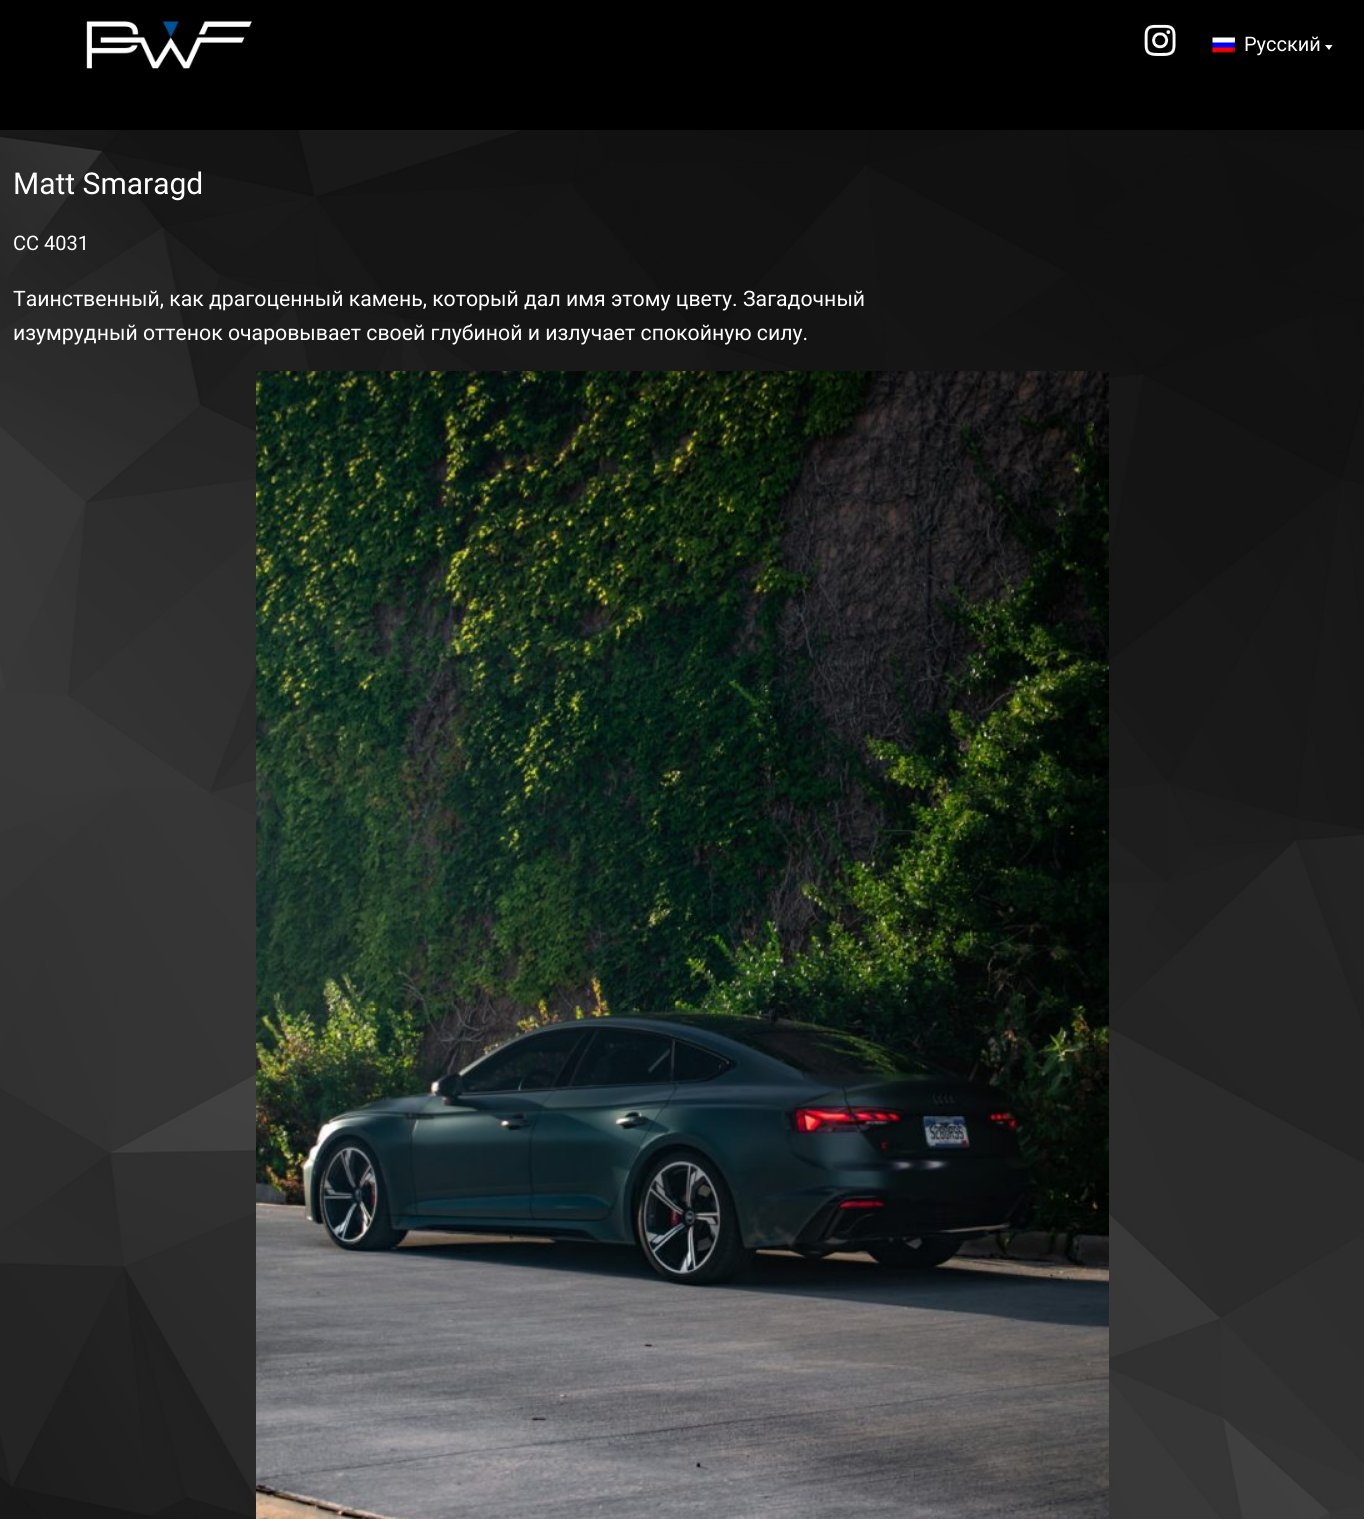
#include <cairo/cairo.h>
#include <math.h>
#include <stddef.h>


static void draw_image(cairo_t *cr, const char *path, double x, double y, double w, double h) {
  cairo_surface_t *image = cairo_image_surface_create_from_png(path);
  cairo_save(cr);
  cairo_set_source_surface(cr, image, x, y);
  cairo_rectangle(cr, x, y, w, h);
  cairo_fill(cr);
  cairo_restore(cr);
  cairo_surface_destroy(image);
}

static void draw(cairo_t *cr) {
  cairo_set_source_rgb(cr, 1, 1, 1);
  cairo_paint(cr);
  draw_image(cr, "images/1.png", 0, 130, 1364, 1389);
  cairo_set_source_rgb(cr, 0, 0, 0);
  cairo_rectangle(cr, 0, 0, 1364, 130);
  cairo_fill(cr);
  draw_image(cr, "images/2.png", 86, 20, 166, 49);
  draw_image(cr, "images/3.png", 1143, 23, 33, 34);
  draw_image(cr, "images/4.png", 1212, 37, 23, 16);
  cairo_set_source_rgb(cr, 1, 1, 1);
  cairo_new_path(cr);
  cairo_move_to(cr, 1325, 45);
  cairo_line_to(cr, 1332.5, 45);
  cairo_line_to(cr, 1329, 50);
  cairo_close_path(cr);
  cairo_fill(cr);
  draw_image(cr, "images/5.png", 256, 371, 853, 1148);
  cairo_select_font_face(cr, "Roboto", CAIRO_FONT_SLANT_NORMAL, CAIRO_FONT_WEIGHT_NORMAL);
  cairo_set_font_size(cr, 20);
  cairo_move_to(cr, 1244, 51);
  cairo_show_text(cr, "Русский");
  cairo_set_font_size(cr, 30);
  cairo_move_to(cr, 13, 194);
  cairo_show_text(cr, "Matt Smaragd");
  cairo_set_font_size(cr, 20);
  cairo_move_to(cr, 13, 250);
  cairo_show_text(cr, "CC 4031");
  cairo_set_font_size(cr, 21.25);
  cairo_move_to(cr, 13, 306);
  cairo_show_text(cr, "Таинственный, как драгоценный камень, который дал имя этому цвету. Загадочный");
  cairo_move_to(cr, 13, 340);
  cairo_show_text(cr, "изумрудный оттенок очаровывает своей глубиной и излучает спокойную силу.");
}

int main(void) {
  cairo_surface_t *surface = cairo_image_surface_create(CAIRO_FORMAT_RGB24, 1364, 1519);
  cairo_t *cr = cairo_create(surface);
  cairo_font_options_t *options = cairo_font_options_create();
  cairo_font_options_set_hint_metrics(options, CAIRO_HINT_METRICS_OFF);
  cairo_font_options_set_hint_style(options, CAIRO_HINT_STYLE_NONE);
  cairo_set_font_options(cr, options);
  cairo_set_miter_limit(cr, 4);
  draw(cr);
  cairo_surface_write_to_png(surface, "out.png");
  cairo_font_options_destroy(options);
  cairo_destroy(cr);
  cairo_surface_destroy(surface);
  return 0;
}
